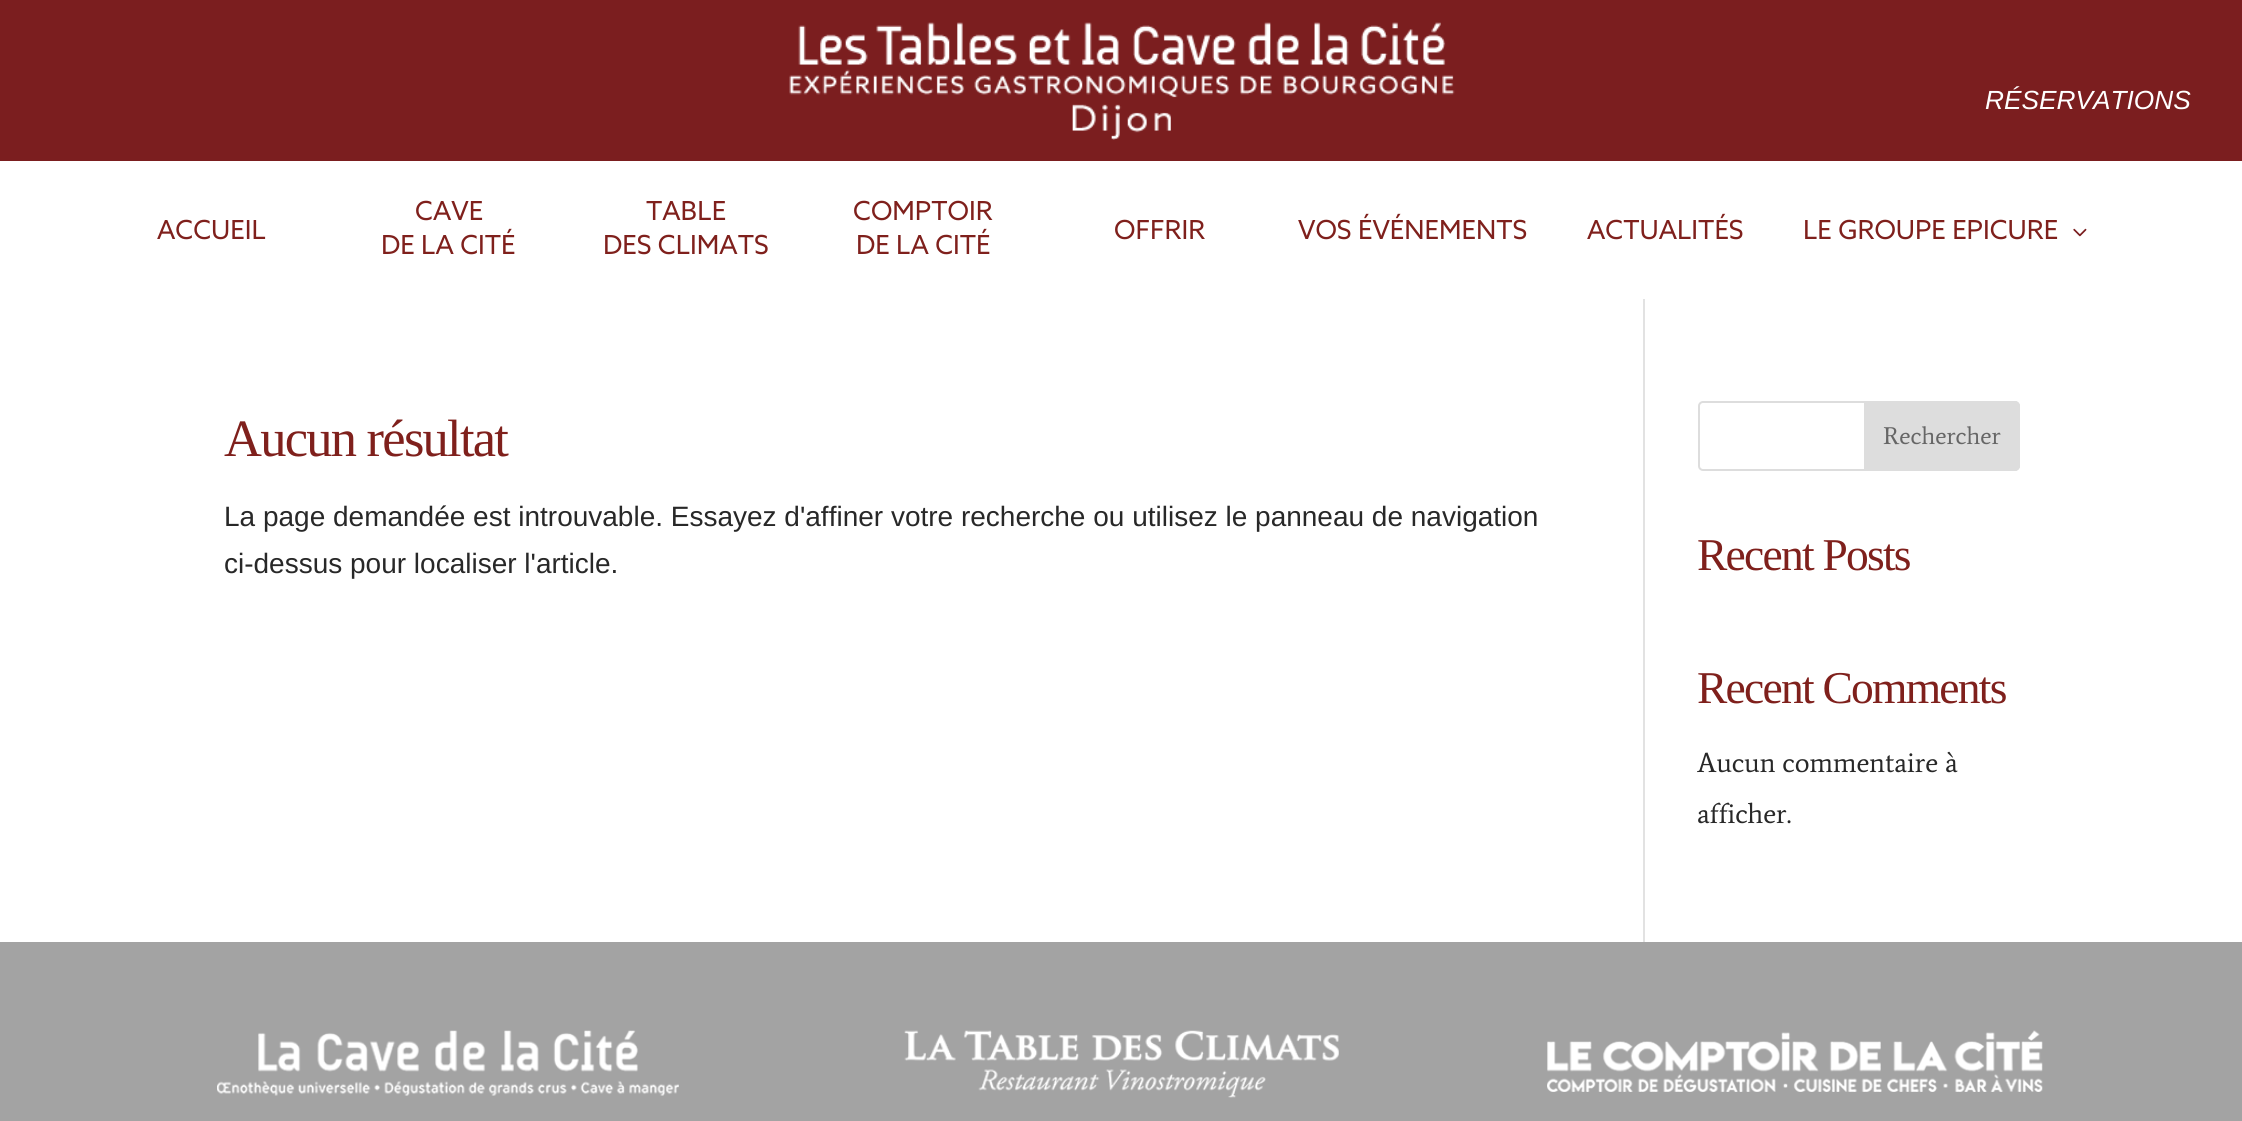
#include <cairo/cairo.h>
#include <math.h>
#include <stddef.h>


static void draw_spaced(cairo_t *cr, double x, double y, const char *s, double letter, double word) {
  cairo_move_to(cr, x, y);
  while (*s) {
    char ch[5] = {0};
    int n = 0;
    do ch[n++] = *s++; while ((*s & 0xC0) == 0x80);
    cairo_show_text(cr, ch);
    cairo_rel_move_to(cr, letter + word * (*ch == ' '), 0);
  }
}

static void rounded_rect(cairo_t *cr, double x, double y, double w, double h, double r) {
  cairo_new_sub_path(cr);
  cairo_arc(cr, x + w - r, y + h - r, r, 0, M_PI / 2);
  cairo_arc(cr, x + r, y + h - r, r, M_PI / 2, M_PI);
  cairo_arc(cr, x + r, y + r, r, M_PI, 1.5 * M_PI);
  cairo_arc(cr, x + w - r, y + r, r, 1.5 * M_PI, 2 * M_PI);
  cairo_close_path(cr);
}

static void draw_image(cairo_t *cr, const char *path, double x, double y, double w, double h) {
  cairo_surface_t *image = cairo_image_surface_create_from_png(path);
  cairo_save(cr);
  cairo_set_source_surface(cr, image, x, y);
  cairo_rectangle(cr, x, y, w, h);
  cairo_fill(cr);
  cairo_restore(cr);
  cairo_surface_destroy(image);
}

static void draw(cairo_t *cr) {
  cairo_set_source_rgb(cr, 1, 1, 1);
  cairo_paint(cr);
  cairo_set_source_rgb(cr, 123 / 255.0, 30 / 255.0, 31 / 255.0);
  cairo_rectangle(cr, 0, 0, 2242, 161);
  cairo_fill(cr);
  draw_image(cr, "images/1.png", 789, 22, 666, 118);
  draw_image(cr, "images/2.png", 2073, 228, 14, 9);
  cairo_set_source_rgb(cr, 226 / 255.0, 226 / 255.0, 226 / 255.0);
  cairo_rectangle(cr, 1643, 299, 2, 643);
  cairo_fill(cr);
  rounded_rect(cr, 1699, 402, 320, 68, 4);
  cairo_set_source_rgb(cr, 221 / 255.0, 221 / 255.0, 221 / 255.0);
  cairo_stroke(cr);
  cairo_new_path(cr);
  cairo_move_to(cr, 1865, 402);
  cairo_line_to(cr, 2015, 402);
  cairo_curve_to(cr, 2017, 402, 2019, 404, 2019, 406);
  cairo_line_to(cr, 2019, 466);
  cairo_curve_to(cr, 2019, 468, 2017, 470, 2015, 470);
  cairo_line_to(cr, 1865, 470);
  cairo_close_path(cr);
  cairo_fill_preserve(cr);
  cairo_stroke(cr);
  cairo_set_source_rgb(cr, 163 / 255.0, 163 / 255.0, 163 / 255.0);
  cairo_rectangle(cr, 0, 942, 2242, 179);
  cairo_fill(cr);
  draw_image(cr, "images/3.png", 217, 1030, 462, 66);
  draw_image(cr, "images/4.png", 904, 1030, 435, 68);
  draw_image(cr, "images/5.png", 1547, 1030, 496, 62);
  cairo_select_font_face(cr, "Liberation Sans", CAIRO_FONT_SLANT_ITALIC, CAIRO_FONT_WEIGHT_NORMAL);
  cairo_set_font_size(cr, 26.25);
  cairo_set_source_rgb(cr, 1, 1, 1);
  cairo_move_to(cr, 1985, 109);
  cairo_show_text(cr, "RÉSERVATIONS");
  cairo_select_font_face(cr, "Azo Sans", CAIRO_FONT_SLANT_NORMAL, CAIRO_FONT_WEIGHT_NORMAL);
  cairo_set_source_rgb(cr, 127 / 255.0, 32 / 255.0, 28 / 255.0);
  cairo_move_to(cr, 157, 239);
  cairo_show_text(cr, "ACCUEIL");
  cairo_move_to(cr, 415, 220);
  cairo_show_text(cr, "CAVE");
  cairo_move_to(cr, 381, 254);
  cairo_show_text(cr, "DE LA CITÉ");
  cairo_move_to(cr, 646, 220);
  cairo_show_text(cr, "TABLE");
  cairo_move_to(cr, 603, 254);
  cairo_show_text(cr, "DES CLIMATS");
  cairo_move_to(cr, 853, 220);
  cairo_show_text(cr, "COMPTOIR");
  cairo_move_to(cr, 856, 254);
  cairo_show_text(cr, "DE LA CITÉ");
  cairo_move_to(cr, 1114, 239);
  cairo_show_text(cr, "OFFRIR");
  cairo_move_to(cr, 1298, 239);
  cairo_show_text(cr, "VOS ÉVÉNEMENTS");
  cairo_move_to(cr, 1587, 239);
  cairo_show_text(cr, "ACTUALITÉS");
  cairo_move_to(cr, 1803, 239);
  cairo_show_text(cr, "LE GROUPE EPICURE");
  cairo_select_font_face(cr, "Liberation Serif", CAIRO_FONT_SLANT_NORMAL, CAIRO_FONT_WEIGHT_NORMAL);
  cairo_set_font_size(cr, 52.5);
  draw_spaced(cr, 224, 456, "Aucun résultat", -1.75, 0);
  cairo_select_font_face(cr, "Liberation Sans", CAIRO_FONT_SLANT_NORMAL, CAIRO_FONT_WEIGHT_NORMAL);
  cairo_set_font_size(cr, 28);
  cairo_set_source_rgb(cr, 40 / 255.0, 40 / 255.0, 40 / 255.0);
  cairo_move_to(cr, 224, 526);
  cairo_show_text(cr, "La page demandée est introuvable. Essayez d'affiner votre recherche ou utilisez le panneau de navigation");
  cairo_move_to(cr, 224, 573);
  cairo_show_text(cr, "ci-dessus pour localiser l'article.");
  cairo_select_font_face(cr, "Average", CAIRO_FONT_SLANT_NORMAL, CAIRO_FONT_WEIGHT_NORMAL);
  cairo_set_font_size(cr, 24.5);
  cairo_set_source_rgb(cr, 102 / 255.0, 102 / 255.0, 102 / 255.0);
  cairo_move_to(cr, 1883, 444);
  cairo_show_text(cr, "Rechercher");
  cairo_select_font_face(cr, "Liberation Serif", CAIRO_FONT_SLANT_NORMAL, CAIRO_FONT_WEIGHT_NORMAL);
  cairo_set_font_size(cr, 45.5);
  cairo_set_source_rgb(cr, 127 / 255.0, 32 / 255.0, 28 / 255.0);
  draw_spaced(cr, 1697, 570, "Recent Posts", -1.75, 0);
  draw_spaced(cr, 1697, 703, "Recent Comments", -1.75, 0);
  cairo_select_font_face(cr, "Average", CAIRO_FONT_SLANT_NORMAL, CAIRO_FONT_WEIGHT_NORMAL);
  cairo_set_font_size(cr, 28);
  cairo_set_source_rgb(cr, 40 / 255.0, 40 / 255.0, 40 / 255.0);
  cairo_move_to(cr, 1697, 772);
  cairo_show_text(cr, "Aucun commentaire à");
  cairo_move_to(cr, 1697, 823);
  cairo_show_text(cr, "afficher.");
}

int main(void) {
  cairo_surface_t *surface = cairo_image_surface_create(CAIRO_FORMAT_RGB24, 2242, 1121);
  cairo_t *cr = cairo_create(surface);
  cairo_font_options_t *options = cairo_font_options_create();
  cairo_font_options_set_hint_metrics(options, CAIRO_HINT_METRICS_OFF);
  cairo_font_options_set_hint_style(options, CAIRO_HINT_STYLE_NONE);
  cairo_set_font_options(cr, options);
  cairo_set_miter_limit(cr, 4);
  draw(cr);
  cairo_surface_write_to_png(surface, "out.png");
  cairo_font_options_destroy(options);
  cairo_destroy(cr);
  cairo_surface_destroy(surface);
  return 0;
}
